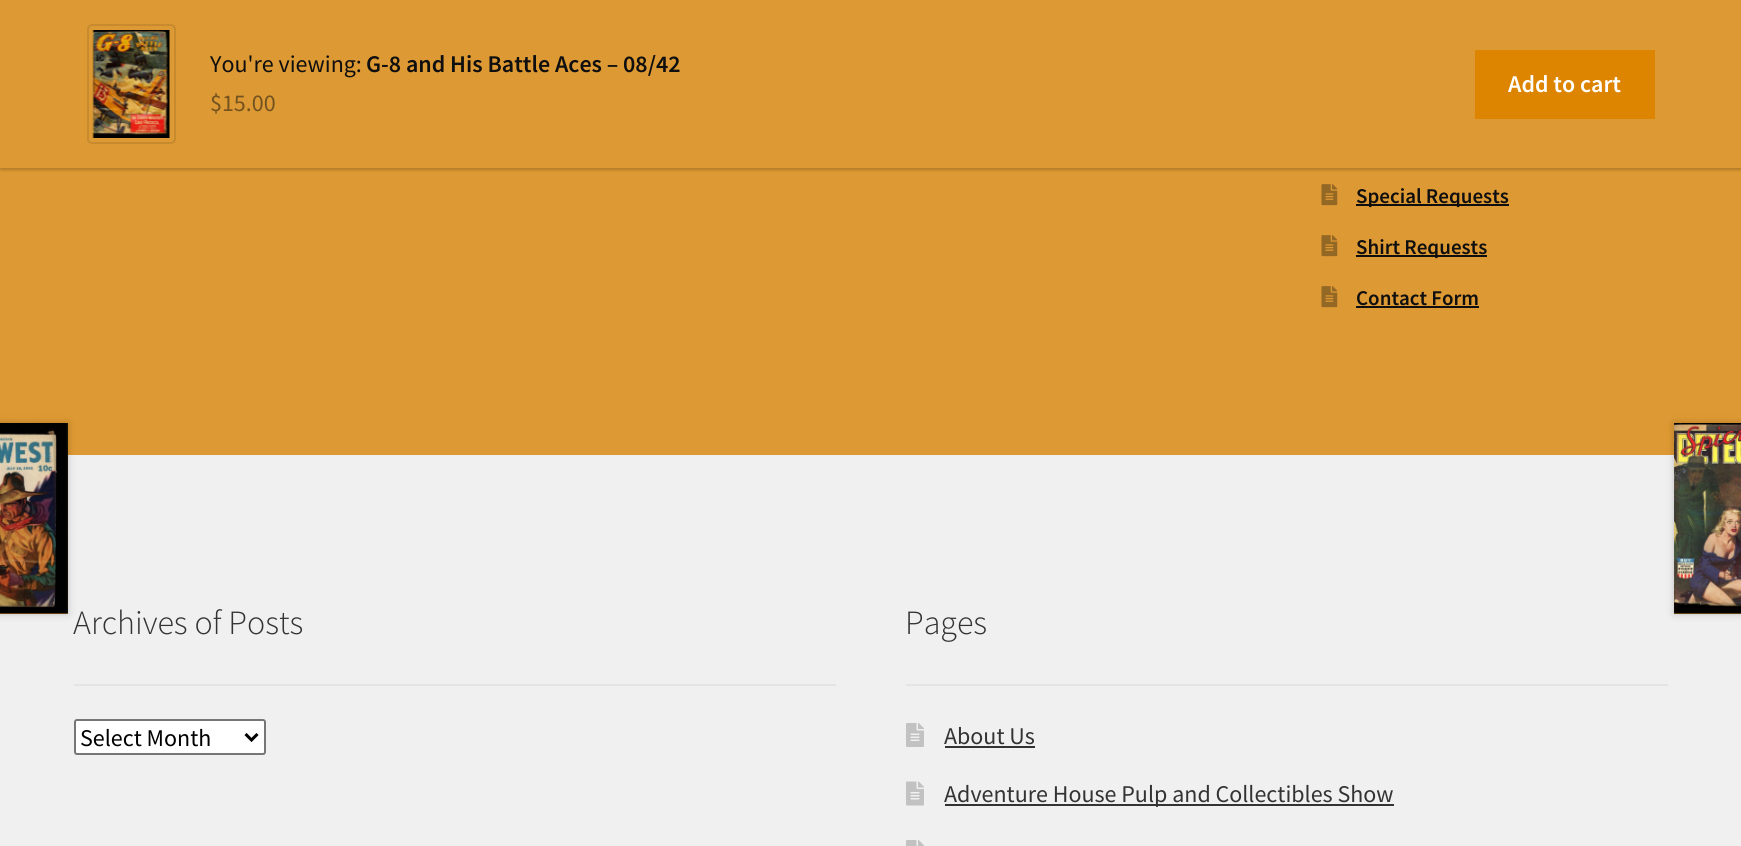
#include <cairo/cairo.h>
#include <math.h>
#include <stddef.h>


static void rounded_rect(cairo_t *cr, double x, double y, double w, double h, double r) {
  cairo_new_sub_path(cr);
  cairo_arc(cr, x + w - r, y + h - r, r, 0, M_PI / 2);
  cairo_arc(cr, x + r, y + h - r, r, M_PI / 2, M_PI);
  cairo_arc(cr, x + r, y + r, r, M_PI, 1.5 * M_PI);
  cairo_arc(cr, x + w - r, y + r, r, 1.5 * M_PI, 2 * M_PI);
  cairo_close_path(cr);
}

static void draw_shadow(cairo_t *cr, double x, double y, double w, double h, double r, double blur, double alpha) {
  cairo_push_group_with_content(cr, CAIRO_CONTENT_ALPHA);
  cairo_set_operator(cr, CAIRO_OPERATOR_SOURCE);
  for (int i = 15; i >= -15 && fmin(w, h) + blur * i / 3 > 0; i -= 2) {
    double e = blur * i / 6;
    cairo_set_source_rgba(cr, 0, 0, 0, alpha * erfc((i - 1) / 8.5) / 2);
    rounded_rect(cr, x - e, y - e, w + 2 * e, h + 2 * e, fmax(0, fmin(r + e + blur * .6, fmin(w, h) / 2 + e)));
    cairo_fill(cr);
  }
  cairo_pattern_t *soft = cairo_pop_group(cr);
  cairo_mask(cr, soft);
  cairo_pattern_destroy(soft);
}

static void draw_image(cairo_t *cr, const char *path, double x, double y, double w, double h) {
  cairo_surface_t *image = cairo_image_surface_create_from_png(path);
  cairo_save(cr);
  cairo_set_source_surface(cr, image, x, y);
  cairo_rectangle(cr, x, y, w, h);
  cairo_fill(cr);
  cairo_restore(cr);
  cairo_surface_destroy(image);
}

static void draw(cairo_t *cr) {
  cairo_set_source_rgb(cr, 221 / 255.0, 153 / 255.0, 51 / 255.0);
  cairo_paint(cr);
  cairo_set_source_rgb(cr, 0, 0, 0);
  draw_shadow(cr, 0, 2, 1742, 168, 0, 1.5, 0.2);
  cairo_set_source_rgb(cr, 221 / 255.0, 153 / 255.0, 51 / 255.0);
  cairo_rectangle(cr, 0, 0, 1741, 168);
  cairo_fill(cr);
  rounded_rect(cr, 88, 25, 87, 118, 4);
  cairo_set_source_rgb(cr, 199 / 255.0, 138 / 255.0, 46 / 255.0);
  cairo_stroke(cr);
  draw_image(cr, "images/1.png", 92, 30, 78, 108);
  cairo_set_source_rgb(cr, 221 / 255.0, 133 / 255.0, 0);
  cairo_rectangle(cr, 1475, 50, 180, 69);
  cairo_fill(cr);
  draw_image(cr, "images/2.png", 1321, 184, 17, 22);
  cairo_set_source_rgb(cr, 15 / 255.0, 15 / 255.0, 15 / 255.0);
  cairo_rectangle(cr, 1356, 204, 153, 2);
  cairo_fill(cr);
  draw_image(cr, "images/2.png", 1321, 235, 17, 22);
  cairo_rectangle(cr, 1356, 255, 131, 2);
  cairo_fill(cr);
  draw_image(cr, "images/2.png", 1321, 286, 17, 22);
  cairo_rectangle(cr, 1356, 306, 123, 2);
  cairo_fill(cr);
  cairo_set_source_rgb(cr, 240 / 255.0, 240 / 255.0, 240 / 255.0);
  cairo_rectangle(cr, 0, 455, 1741, 391);
  cairo_fill(cr);
  cairo_set_source_rgb(cr, 0, 0, 0);
  draw_shadow(cr, -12, 423, 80, 191, 0, 4, 0.2);
  cairo_set_source_rgb(cr, 221 / 255.0, 153 / 255.0, 51 / 255.0);
  cairo_rectangle(cr, 0, 423, 68, 191);
  cairo_fill(cr);
  draw_image(cr, "images/3.png", 0, 423, 68, 191);
  cairo_set_source_rgb(cr, 0, 0, 0);
  draw_shadow(cr, 1674, 423, 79, 191, 0, 4, 0.2);
  cairo_set_source_rgb(cr, 221 / 255.0, 153 / 255.0, 51 / 255.0);
  cairo_rectangle(cr, 1674, 612, 67, 2);
  cairo_fill(cr);
  draw_image(cr, "images/4.png", 1674, 423, 67, 191);
  cairo_set_source_rgb(cr, 228 / 255.0, 228 / 255.0, 228 / 255.0);
  cairo_rectangle(cr, 74, 684, 762, 2);
  cairo_fill(cr);
  cairo_set_source_rgb(cr, 1, 1, 1);
  rounded_rect(cr, 75, 720, 190, 34, 2);
  cairo_fill_preserve(cr);
  cairo_set_source_rgb(cr, 118 / 255.0, 118 / 255.0, 118 / 255.0);
  cairo_stroke(cr);
  cairo_new_path(cr);
  cairo_move_to(cr, 245.5, 734);
  cairo_line_to(cr, 251.5, 740);
  cairo_line_to(cr, 257.5, 734);
  cairo_set_source_rgb(cr, 0, 0, 0);
  cairo_set_line_width(cr, 3);
  cairo_stroke(cr);
  cairo_set_source_rgb(cr, 228 / 255.0, 228 / 255.0, 228 / 255.0);
  cairo_rectangle(cr, 906, 684, 762, 2);
  cairo_fill(cr);
  draw_image(cr, "images/5.png", 906, 723, 18, 24);
  cairo_set_source_rgb(cr, 51 / 255.0, 51 / 255.0, 51 / 255.0);
  cairo_rectangle(cr, 945, 746, 90, 2);
  cairo_fill(cr);
  draw_image(cr, "images/6.png", 906, 781, 18, 25);
  cairo_rectangle(cr, 945, 804, 449, 2);
  cairo_fill(cr);
  draw_image(cr, "images/7.png", 906, 840, 18, 6);
  cairo_select_font_face(cr, "Source Sans Pro", CAIRO_FONT_SLANT_NORMAL, CAIRO_FONT_WEIGHT_NORMAL);
  cairo_set_font_size(cr, 24);
  cairo_set_source_rgb(cr, 15 / 255.0, 15 / 255.0, 15 / 255.0);
  cairo_move_to(cr, 210, 72);
  cairo_show_text(cr, "You're viewing:");
  cairo_select_font_face(cr, "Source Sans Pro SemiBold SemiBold", CAIRO_FONT_SLANT_NORMAL, CAIRO_FONT_WEIGHT_NORMAL);
  cairo_move_to(cr, 366, 72);
  cairo_show_text(cr, "G-8 and His Battle Aces – 08/42");
  cairo_select_font_face(cr, "Source Sans Pro", CAIRO_FONT_SLANT_NORMAL, CAIRO_FONT_WEIGHT_NORMAL);
  cairo_set_source_rgb(cr, 116 / 255.0, 82 / 255.0, 31 / 255.0);
  cairo_move_to(cr, 210, 111);
  cairo_show_text(cr, "$15.00");
  cairo_select_font_face(cr, "Source Sans Pro SemiBold SemiBold", CAIRO_FONT_SLANT_NORMAL, CAIRO_FONT_WEIGHT_NORMAL);
  cairo_set_source_rgb(cr, 1, 1, 1);
  cairo_move_to(cr, 1508, 92);
  cairo_show_text(cr, "Add to cart");
  cairo_set_font_size(cr, 21);
  cairo_set_source_rgb(cr, 15 / 255.0, 15 / 255.0, 15 / 255.0);
  cairo_move_to(cr, 1356, 203);
  cairo_show_text(cr, "Special Requests");
  cairo_move_to(cr, 1356, 254);
  cairo_show_text(cr, "Shirt Requests");
  cairo_move_to(cr, 1356, 305);
  cairo_show_text(cr, "Contact Form");
  cairo_select_font_face(cr, "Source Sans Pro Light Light", CAIRO_FONT_SLANT_NORMAL, CAIRO_FONT_WEIGHT_NORMAL);
  cairo_set_font_size(cr, 34);
  cairo_set_source_rgb(cr, 51 / 255.0, 51 / 255.0, 51 / 255.0);
  cairo_move_to(cr, 73, 634);
  cairo_show_text(cr, "Archives of Posts");
  cairo_select_font_face(cr, "Source Sans Pro", CAIRO_FONT_SLANT_NORMAL, CAIRO_FONT_WEIGHT_NORMAL);
  cairo_set_font_size(cr, 24);
  cairo_set_source_rgb(cr, 0, 0, 0);
  cairo_move_to(cr, 80, 746);
  cairo_show_text(cr, "Select Month");
  cairo_select_font_face(cr, "Source Sans Pro Light Light", CAIRO_FONT_SLANT_NORMAL, CAIRO_FONT_WEIGHT_NORMAL);
  cairo_set_font_size(cr, 34);
  cairo_set_source_rgb(cr, 51 / 255.0, 51 / 255.0, 51 / 255.0);
  cairo_move_to(cr, 905, 634);
  cairo_show_text(cr, "Pages");
  cairo_select_font_face(cr, "Source Sans Pro", CAIRO_FONT_SLANT_NORMAL, CAIRO_FONT_WEIGHT_NORMAL);
  cairo_set_font_size(cr, 24);
  cairo_move_to(cr, 944, 744);
  cairo_show_text(cr, "About Us");
  cairo_move_to(cr, 944, 802);
  cairo_show_text(cr, "Adventure House Pulp and Collectibles Show");
}

int main(void) {
  cairo_surface_t *surface = cairo_image_surface_create(CAIRO_FORMAT_RGB24, 1741, 846);
  cairo_t *cr = cairo_create(surface);
  cairo_font_options_t *options = cairo_font_options_create();
  cairo_font_options_set_hint_metrics(options, CAIRO_HINT_METRICS_OFF);
  cairo_font_options_set_hint_style(options, CAIRO_HINT_STYLE_NONE);
  cairo_set_font_options(cr, options);
  cairo_set_miter_limit(cr, 4);
  draw(cr);
  cairo_surface_write_to_png(surface, "out.png");
  cairo_font_options_destroy(options);
  cairo_destroy(cr);
  cairo_surface_destroy(surface);
  return 0;
}
